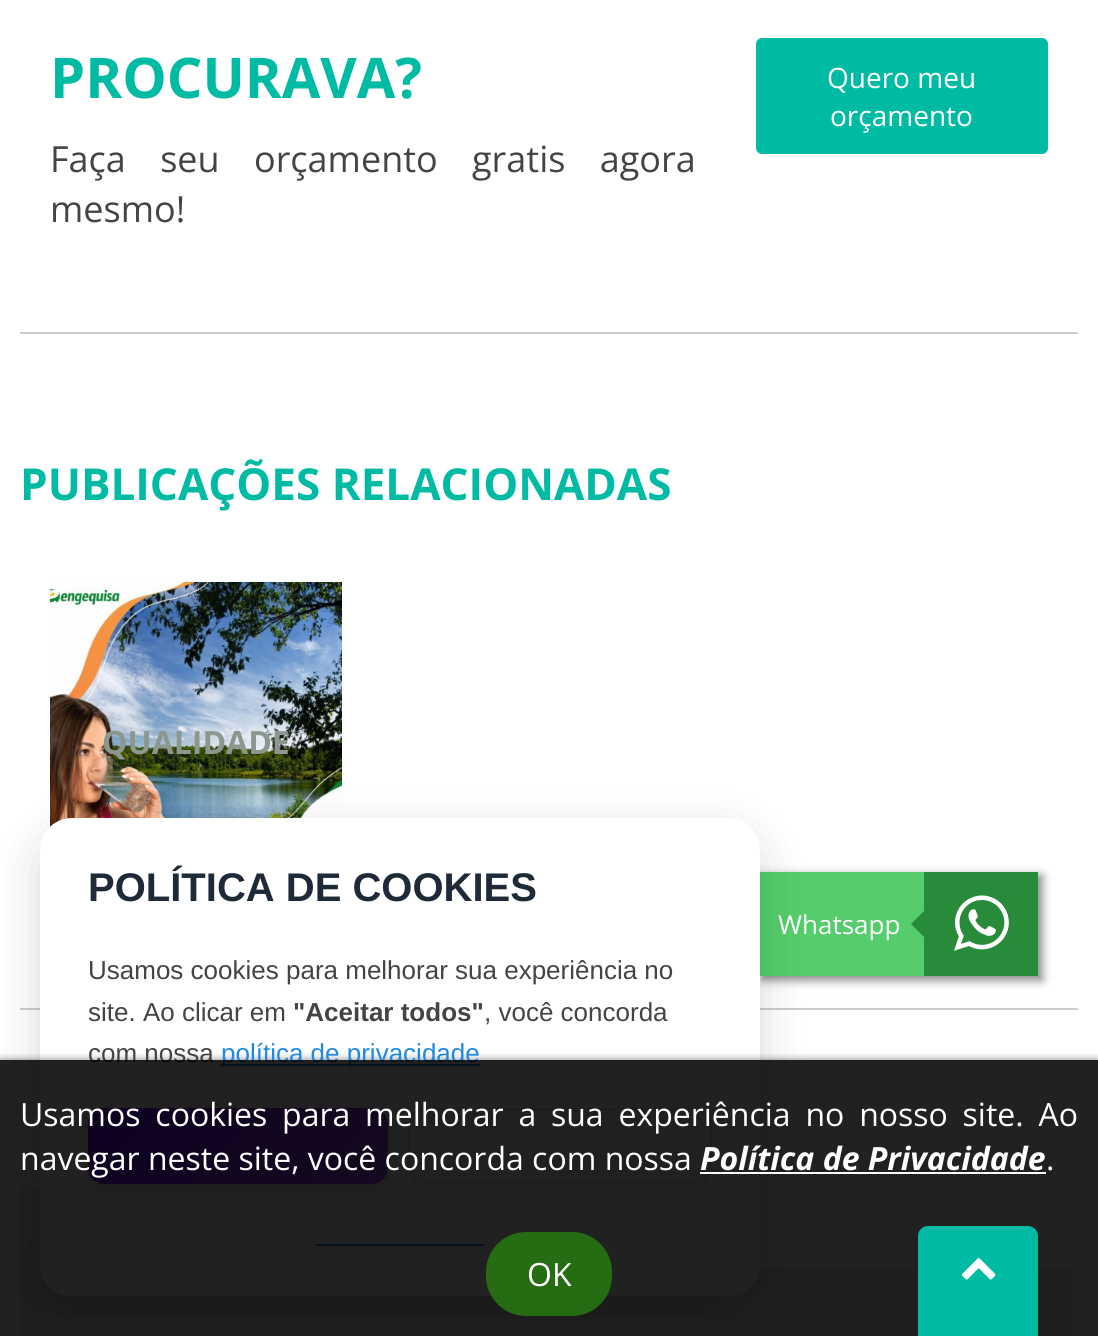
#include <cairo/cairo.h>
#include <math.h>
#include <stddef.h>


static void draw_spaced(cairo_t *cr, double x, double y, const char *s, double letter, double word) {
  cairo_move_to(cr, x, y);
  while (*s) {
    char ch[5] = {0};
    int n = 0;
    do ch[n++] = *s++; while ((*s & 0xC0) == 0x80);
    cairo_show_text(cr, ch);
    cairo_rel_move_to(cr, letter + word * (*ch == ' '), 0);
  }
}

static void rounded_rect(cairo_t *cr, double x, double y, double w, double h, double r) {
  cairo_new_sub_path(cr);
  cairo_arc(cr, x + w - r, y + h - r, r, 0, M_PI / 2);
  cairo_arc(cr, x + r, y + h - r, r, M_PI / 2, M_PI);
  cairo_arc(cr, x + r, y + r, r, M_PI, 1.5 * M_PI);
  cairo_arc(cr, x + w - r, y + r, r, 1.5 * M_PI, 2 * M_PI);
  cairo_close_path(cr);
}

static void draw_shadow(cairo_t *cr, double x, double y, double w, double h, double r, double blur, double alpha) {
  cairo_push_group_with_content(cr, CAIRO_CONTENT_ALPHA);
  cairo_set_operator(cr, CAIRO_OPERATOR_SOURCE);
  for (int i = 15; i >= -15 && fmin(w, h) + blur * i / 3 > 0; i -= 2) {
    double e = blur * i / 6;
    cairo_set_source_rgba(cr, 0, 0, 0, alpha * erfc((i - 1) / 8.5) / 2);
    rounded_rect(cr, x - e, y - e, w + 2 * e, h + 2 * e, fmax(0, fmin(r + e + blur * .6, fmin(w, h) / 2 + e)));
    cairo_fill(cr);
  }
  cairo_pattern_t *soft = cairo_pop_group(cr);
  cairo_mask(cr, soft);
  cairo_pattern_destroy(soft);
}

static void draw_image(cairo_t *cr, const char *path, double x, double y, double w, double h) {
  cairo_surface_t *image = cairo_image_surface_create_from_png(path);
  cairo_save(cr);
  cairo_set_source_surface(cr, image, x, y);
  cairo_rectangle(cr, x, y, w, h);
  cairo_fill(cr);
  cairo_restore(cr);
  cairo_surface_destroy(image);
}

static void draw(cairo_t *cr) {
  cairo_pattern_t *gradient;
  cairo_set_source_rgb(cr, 1, 1, 1);
  cairo_paint(cr);
  cairo_set_source_rgb(cr, 0, 187 / 255.0, 163 / 255.0);
  rounded_rect(cr, 756, 38, 292, 116, 6);
  cairo_fill(cr);
  cairo_set_source_rgb(cr, 204 / 255.0, 204 / 255.0, 204 / 255.0);
  cairo_rectangle(cr, 20, 332, 1058, 2);
  cairo_fill(cr);
  draw_image(cr, "images/1.png", 50, 582, 292, 245);
  cairo_rectangle(cr, 20, 1008, 1058, 2);
  cairo_fill(cr);
  cairo_set_source_rgb(cr, 238 / 255.0, 238 / 255.0, 238 / 255.0);
  cairo_rectangle(cr, 20, 1186, 20, 74);
  cairo_fill(cr);
  cairo_rectangle(cr, 20, 1268, 1058, 68);
  cairo_fill(cr);
  cairo_set_source_rgb(cr, 229 / 255.0, 229 / 255.0, 229 / 255.0);
  rounded_rect(cr, 20, 1236, 700, 80, 24);
  cairo_fill(cr);
  cairo_set_source_rgb(cr, 0, 0, 0);
  draw_shadow(cr, 762, 876, 280, 104, 0, 5, 0.5);
  cairo_set_source_rgb(cr, 85 / 255.0, 205 / 255.0, 108 / 255.0);
  cairo_rectangle(cr, 760, 872, 164, 104);
  cairo_fill(cr);
  cairo_set_source_rgb(cr, 0, 0, 0);
  draw_shadow(cr, 40, 834, 720, 478, 32, 24, 0.15);
  cairo_set_source_rgb(cr, 1, 1, 1);
  rounded_rect(cr, 40, 818, 720, 478, 32);
  cairo_fill(cr);
  cairo_set_source_rgb(cr, 30 / 255.0, 136 / 255.0, 229 / 255.0);
  cairo_rectangle(cr, 220, 1064, 260, 2);
  cairo_fill(cr);
  cairo_set_source_rgb(cr, 0, 0, 0);
  draw_shadow(cr, 88, 1114, 300, 76, 16, 8, 0.15);
  gradient = cairo_pattern_create_linear(144, 1052, 332, 1240);
  cairo_pattern_add_color_stop_rgba(gradient, 0, 110 / 255.0, 0, 1, 1);
  cairo_pattern_add_color_stop_rgba(gradient, 1, 157 / 255.0, 71 / 255.0, 245 / 255.0, 1);
  cairo_set_source(cr, gradient);
  cairo_pattern_destroy(gradient);
  rounded_rect(cr, 88, 1108, 300, 76, 16);
  cairo_fill(cr);
  cairo_set_source_rgb(cr, 245 / 255.0, 245 / 255.0, 245 / 255.0);
  rounded_rect(cr, 409, 1109, 302, 74, 15);
  cairo_fill_preserve(cr);
  cairo_set_source_rgb(cr, 221 / 255.0, 221 / 255.0, 221 / 255.0);
  cairo_stroke(cr);
  cairo_set_source_rgb(cr, 30 / 255.0, 136 / 255.0, 229 / 255.0);
  cairo_rectangle(cr, 316, 1244, 168, 2);
  cairo_fill(cr);
  cairo_set_source_rgb(cr, 39 / 255.0, 139 / 255.0, 58 / 255.0);
  cairo_new_path(cr);
  cairo_move_to(cr, 939, 896);
  cairo_line_to(cr, 967, 924);
  cairo_line_to(cr, 939, 952);
  cairo_line_to(cr, 911, 924);
  cairo_close_path(cr);
  cairo_fill(cr);
  cairo_rectangle(cr, 924, 872, 114, 104);
  cairo_fill(cr);
  draw_image(cr, "images/2.png", 954, 895, 55, 56);
  cairo_save(cr);
  cairo_rectangle(cr, 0, 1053, 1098, 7);
  cairo_clip(cr);
  cairo_set_source_rgb(cr, 0, 0, 0);
  draw_shadow(cr, 0, 1060, 1098, 276, 0, 4, 0.5);
  cairo_restore(cr);
  cairo_select_font_face(cr, "Open Sans", CAIRO_FONT_SLANT_NORMAL, CAIRO_FONT_WEIGHT_BOLD);
  cairo_set_font_size(cr, 56);
  cairo_set_source_rgb(cr, 0, 187 / 255.0, 163 / 255.0);
  cairo_move_to(cr, 50, 98);
  cairo_show_text(cr, "PROCURAVA?");
  cairo_select_font_face(cr, "Open Sans", CAIRO_FONT_SLANT_NORMAL, CAIRO_FONT_WEIGHT_NORMAL);
  cairo_set_font_size(cr, 36);
  cairo_set_source_rgb(cr, 68 / 255.0, 68 / 255.0, 68 / 255.0);
  draw_spaced(cr, 50, 172, "Faça seu orçamento gratis agora", 0, 25);
  cairo_move_to(cr, 50, 222);
  cairo_show_text(cr, "mesmo!");
  cairo_set_font_size(cr, 28);
  cairo_set_source_rgb(cr, 1, 1, 1);
  cairo_move_to(cr, 827, 88);
  cairo_show_text(cr, "Quero meu");
  cairo_move_to(cr, 830, 126);
  cairo_show_text(cr, "orçamento");
  cairo_select_font_face(cr, "Open Sans", CAIRO_FONT_SLANT_NORMAL, CAIRO_FONT_WEIGHT_BOLD);
  cairo_set_font_size(cr, 44);
  cairo_set_source_rgb(cr, 0, 187 / 255.0, 163 / 255.0);
  cairo_move_to(cr, 20, 500);
  cairo_show_text(cr, "PUBLICAÇÕES RELACIONADAS");
  cairo_set_font_size(cr, 32);
  cairo_set_source_rgb(cr, 140 / 255.0, 152 / 255.0, 142 / 255.0);
  cairo_move_to(cr, 102, 754);
  cairo_show_text(cr, "QUALIDADE");
  cairo_select_font_face(cr, "Liberation Sans", CAIRO_FONT_SLANT_NORMAL, CAIRO_FONT_WEIGHT_BOLD);
  cairo_set_font_size(cr, 40);
  cairo_set_source_rgb(cr, 30 / 255.0, 42 / 255.0, 56 / 255.0);
  cairo_move_to(cr, 88, 901);
  cairo_show_text(cr, "POLÍTICA DE COOKIES");
  cairo_select_font_face(cr, "Liberation Sans", CAIRO_FONT_SLANT_NORMAL, CAIRO_FONT_WEIGHT_NORMAL);
  cairo_set_font_size(cr, 26);
  cairo_set_source_rgb(cr, 68 / 255.0, 68 / 255.0, 68 / 255.0);
  cairo_move_to(cr, 88, 979);
  cairo_show_text(cr, "Usamos cookies para melhorar sua experiência no");
  cairo_move_to(cr, 88, 1021);
  cairo_show_text(cr, "site. Ao clicar em");
  cairo_select_font_face(cr, "Liberation Sans", CAIRO_FONT_SLANT_NORMAL, CAIRO_FONT_WEIGHT_BOLD);
  cairo_move_to(cr, 293, 1021);
  cairo_show_text(cr, "\"Aceitar todos\"");
  cairo_select_font_face(cr, "Liberation Sans", CAIRO_FONT_SLANT_NORMAL, CAIRO_FONT_WEIGHT_NORMAL);
  cairo_move_to(cr, 484, 1021);
  cairo_show_text(cr, ", você concorda");
  cairo_move_to(cr, 88, 1062);
  cairo_show_text(cr, "com nossa");
  cairo_set_source_rgb(cr, 30 / 255.0, 136 / 255.0, 229 / 255.0);
  cairo_move_to(cr, 221, 1062);
  cairo_show_text(cr, "política de privacidade");
  cairo_select_font_face(cr, "Open Sans", CAIRO_FONT_SLANT_NORMAL, CAIRO_FONT_WEIGHT_NORMAL);
  cairo_set_source_rgb(cr, 1, 1, 1);
  cairo_move_to(cr, 778, 934);
  cairo_show_text(cr, "Whatsapp");
  cairo_set_source_rgba(cr, 0, 0, 0, 0.87);
  cairo_rectangle(cr, 0, 1060, 1098, 276);
  cairo_fill(cr);
  cairo_set_font_size(cr, 32);
  cairo_set_source_rgb(cr, 1, 1, 1);
  draw_spaced(cr, 20, 1126, "Usamos cookies para melhorar a sua experiência no nosso site. Ao", 0, 6.5);
  cairo_move_to(cr, 20, 1170);
  cairo_show_text(cr, "navegar neste site, você concorda com nossa");
  cairo_select_font_face(cr, "Open Sans", CAIRO_FONT_SLANT_ITALIC, CAIRO_FONT_WEIGHT_BOLD);
  cairo_move_to(cr, 700, 1170);
  cairo_show_text(cr, "Política de Privacidade");
  cairo_rectangle(cr, 700, 1172, 346, 2);
  cairo_fill(cr);
  cairo_select_font_face(cr, "Open Sans", CAIRO_FONT_SLANT_NORMAL, CAIRO_FONT_WEIGHT_NORMAL);
  cairo_move_to(cr, 1046, 1170);
  cairo_show_text(cr, ".");
  cairo_set_source_rgba(cr, 41 / 255.0, 145 / 255.0, 13 / 255.0, 0.68);
  rounded_rect(cr, 486, 1232, 126, 84, 40);
  cairo_fill(cr);
  cairo_set_source_rgb(cr, 1, 1, 1);
  cairo_move_to(cr, 527, 1286);
  cairo_show_text(cr, "OK");
  cairo_set_source_rgb(cr, 0, 187 / 255.0, 163 / 255.0);
  cairo_new_path(cr);
  cairo_move_to(cr, 928, 1226);
  cairo_line_to(cr, 1028, 1226);
  cairo_curve_to(cr, 1033.5, 1226, 1038, 1230.5, 1038, 1236);
  cairo_line_to(cr, 1038, 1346);
  cairo_line_to(cr, 918, 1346);
  cairo_line_to(cr, 918, 1236);
  cairo_curve_to(cr, 918, 1230.5, 922.5, 1226, 928, 1226);
  cairo_close_path(cr);
  cairo_fill(cr);
  draw_image(cr, "images/3.png", 961, 1258, 35, 22);
}

int main(void) {
  cairo_surface_t *surface = cairo_image_surface_create(CAIRO_FORMAT_RGB24, 1098, 1336);
  cairo_t *cr = cairo_create(surface);
  cairo_font_options_t *options = cairo_font_options_create();
  cairo_font_options_set_hint_metrics(options, CAIRO_HINT_METRICS_OFF);
  cairo_font_options_set_hint_style(options, CAIRO_HINT_STYLE_NONE);
  cairo_set_font_options(cr, options);
  cairo_set_miter_limit(cr, 4);
  draw(cr);
  cairo_surface_write_to_png(surface, "out.png");
  cairo_font_options_destroy(options);
  cairo_destroy(cr);
  cairo_surface_destroy(surface);
  return 0;
}
